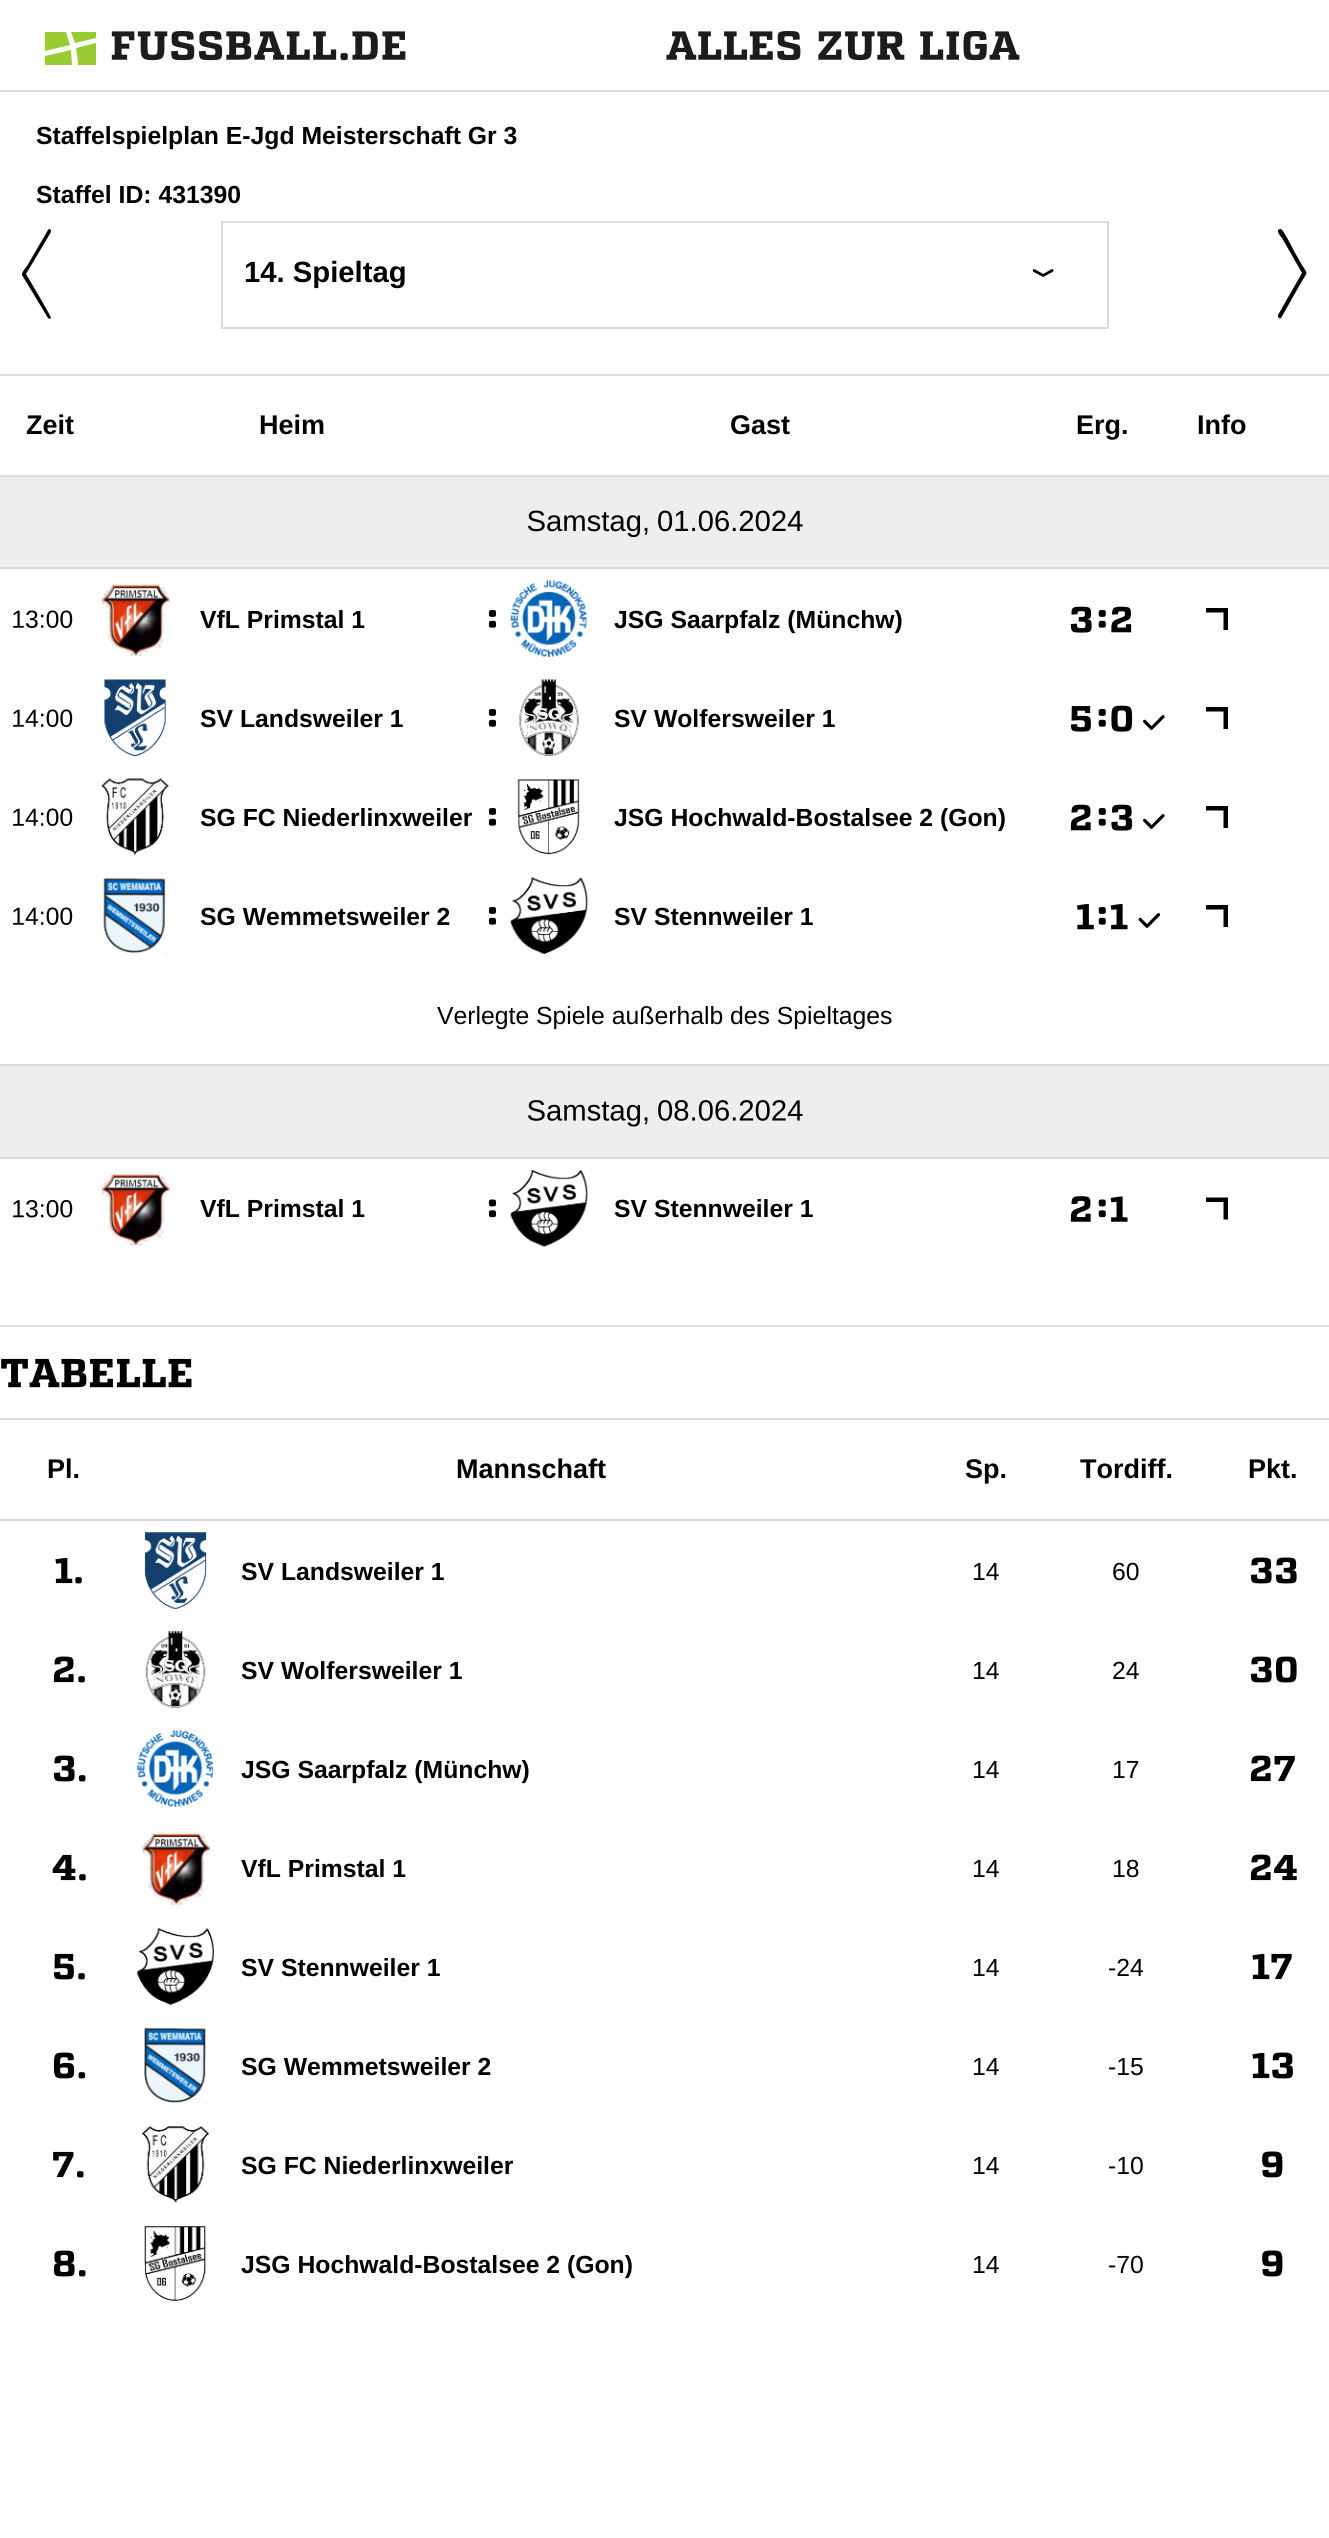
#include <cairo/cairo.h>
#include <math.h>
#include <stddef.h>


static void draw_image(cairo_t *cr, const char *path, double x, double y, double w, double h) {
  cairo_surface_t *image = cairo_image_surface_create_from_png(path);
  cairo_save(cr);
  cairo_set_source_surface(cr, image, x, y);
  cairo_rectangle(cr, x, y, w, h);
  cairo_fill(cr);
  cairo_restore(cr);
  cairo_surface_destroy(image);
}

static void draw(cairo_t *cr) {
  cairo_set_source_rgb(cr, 1, 1, 1);
  cairo_paint(cr);
  cairo_set_source_rgb(cr, 219 / 255.0, 219 / 255.0, 219 / 255.0);
  cairo_rectangle(cr, 0, 90, 1329, 2);
  cairo_fill(cr);
  cairo_set_source_rgb(cr, 153 / 255.0, 204 / 255.0, 51 / 255.0);
  cairo_set_fill_rule(cr, CAIRO_FILL_RULE_EVEN_ODD);
  cairo_new_path(cr);
  cairo_move_to(cr, 71, 50);
  cairo_line_to(cr, 72, 65);
  cairo_line_to(cr, 45, 65);
  cairo_line_to(cr, 45, 56);
  cairo_close_path(cr);
  cairo_move_to(cr, 45, 51);
  cairo_line_to(cr, 45, 32);
  cairo_line_to(cr, 66, 32);
  cairo_line_to(cr, 70, 45);
  cairo_close_path(cr);
  cairo_move_to(cr, 78, 65);
  cairo_curve_to(cr, 78, 60, 77, 54, 76, 48);
  cairo_line_to(cr, 96, 43);
  cairo_line_to(cr, 96, 65);
  cairo_close_path(cr);
  cairo_move_to(cr, 96, 32);
  cairo_line_to(cr, 96, 38);
  cairo_line_to(cr, 75, 43);
  cairo_line_to(cr, 71, 32);
  cairo_close_path(cr);
  cairo_fill(cr);
  draw_image(cr, "images/1.png", 111, 31, 295, 30);
  draw_image(cr, "images/2.png", 666, 31, 354, 30);
  cairo_set_source_rgb(cr, 219 / 255.0, 219 / 255.0, 219 / 255.0);
  cairo_rectangle(cr, 0, 374, 1329, 2);
  cairo_fill(cr);
  cairo_set_source_rgb(cr, 0, 0, 0);
  cairo_set_fill_rule(cr, CAIRO_FILL_RULE_WINDING);
  cairo_new_path(cr);
  cairo_move_to(cr, 51, 232);
  cairo_line_to(cr, 26, 274);
  cairo_curve_to(cr, 29, 279, 51, 316, 51, 318);
  cairo_curve_to(cr, 50, 319, 49, 319, 48, 318);
  cairo_line_to(cr, 22, 275);
  cairo_curve_to(cr, 21, 273, 27, 266, 27, 266);
  cairo_line_to(cr, 48, 230);
  cairo_line_to(cr, 49, 229);
  cairo_line_to(cr, 50, 229);
  cairo_curve_to(cr, 51, 230, 51, 231, 51, 232);
  cairo_close_path(cr);
  cairo_fill(cr);
  cairo_rectangle(cr, 222, 222, 886, 106);
  cairo_set_source_rgb(cr, 219 / 255.0, 219 / 255.0, 219 / 255.0);
  cairo_stroke(cr);
  draw_image(cr, "images/3.png", 1032, 269, 22, 8);
  cairo_set_source_rgb(cr, 0, 0, 0);
  cairo_new_path(cr);
  cairo_move_to(cr, 1278, 315);
  cairo_line_to(cr, 1302, 273);
  cairo_line_to(cr, 1282, 238);
  cairo_curve_to(cr, 1281, 237, 1274, 229, 1281, 229);
  cairo_curve_to(cr, 1284, 231, 1292, 247, 1294, 251);
  cairo_line_to(cr, 1302, 265);
  cairo_curve_to(cr, 1308, 275, 1308, 271, 1302, 281);
  cairo_line_to(cr, 1281, 318);
  cairo_curve_to(cr, 1280, 319, 1278, 318, 1278, 316);
  cairo_close_path(cr);
  cairo_fill(cr);
  cairo_set_source_rgb(cr, 219 / 255.0, 219 / 255.0, 219 / 255.0);
  cairo_rectangle(cr, 0, 475, 1329, 2);
  cairo_fill(cr);
  cairo_set_source_rgb(cr, 238 / 255.0, 238 / 255.0, 238 / 255.0);
  cairo_rectangle(cr, 0, 477, 1329, 90);
  cairo_fill(cr);
  cairo_set_source_rgb(cr, 219 / 255.0, 219 / 255.0, 219 / 255.0);
  cairo_rectangle(cr, 0, 567, 1329, 2);
  cairo_fill(cr);
  draw_image(cr, "images/4.png", 527, 510, 121, 28);
  draw_image(cr, "images/5.png", 658, 510, 145, 22);
  draw_image(cr, "images/6.png", 13, 610, 60, 18);
  draw_image(cr, "images/7.png", 101, 584, 69, 73);
  draw_image(cr, "images/8.png", 488, 610, 9, 18);
  draw_image(cr, "images/9.png", 510, 580, 78, 77);
  draw_image(cr, "images/10.png", 1070, 606, 22, 27);
  draw_image(cr, "images/11.png", 1098, 610, 8, 18);
  draw_image(cr, "images/12.png", 1111, 606, 21, 27);
  cairo_set_source_rgb(cr, 0, 0, 0);
  cairo_new_path(cr);
  cairo_move_to(cr, 1223.5, 630);
  cairo_line_to(cr, 1223.5, 612.5);
  cairo_line_to(cr, 1206, 612.5);
  cairo_line_to(cr, 1206, 608);
  cairo_line_to(cr, 1228, 608);
  cairo_line_to(cr, 1228, 630);
  cairo_close_path(cr);
  cairo_fill(cr);
  draw_image(cr, "images/13.png", 13, 709, 60, 18);
  draw_image(cr, "images/14.png", 104, 679, 62, 77);
  draw_image(cr, "images/8.png", 488, 709, 9, 18);
  draw_image(cr, "images/15.png", 519, 679, 60, 77);
  draw_image(cr, "images/16.png", 1070, 706, 21, 26);
  draw_image(cr, "images/11.png", 1098, 709, 8, 18);
  draw_image(cr, "images/17.png", 1111, 705, 22, 27);
  draw_image(cr, "images/18.png", 1143, 715, 22, 15);
  cairo_new_path(cr);
  cairo_move_to(cr, 1223.5, 729);
  cairo_line_to(cr, 1223.5, 711.5);
  cairo_line_to(cr, 1206, 711.5);
  cairo_line_to(cr, 1206, 707);
  cairo_line_to(cr, 1228, 707);
  cairo_line_to(cr, 1228, 729);
  cairo_close_path(cr);
  cairo_fill(cr);
  draw_image(cr, "images/13.png", 13, 808, 60, 18);
  draw_image(cr, "images/19.png", 101, 778, 68, 77);
  draw_image(cr, "images/8.png", 488, 808, 9, 18);
  draw_image(cr, "images/20.png", 517, 779, 63, 76);
  draw_image(cr, "images/21.png", 1070, 804, 21, 27);
  draw_image(cr, "images/11.png", 1098, 808, 8, 18);
  draw_image(cr, "images/22.png", 1111, 804, 22, 27);
  draw_image(cr, "images/18.png", 1143, 814, 22, 15);
  cairo_new_path(cr);
  cairo_move_to(cr, 1223.5, 828);
  cairo_line_to(cr, 1223.5, 810.5);
  cairo_line_to(cr, 1206, 810.5);
  cairo_line_to(cr, 1206, 806);
  cairo_line_to(cr, 1228, 806);
  cairo_line_to(cr, 1228, 828);
  cairo_close_path(cr);
  cairo_fill(cr);
  draw_image(cr, "images/13.png", 13, 907, 60, 18);
  draw_image(cr, "images/23.png", 103, 877, 64, 77);
  draw_image(cr, "images/8.png", 488, 907, 9, 18);
  draw_image(cr, "images/24.png", 510, 877, 78, 77);
  draw_image(cr, "images/25.png", 1077, 904, 17, 26);
  draw_image(cr, "images/11.png", 1098, 907, 8, 18);
  draw_image(cr, "images/26.png", 1110, 904, 18, 26);
  draw_image(cr, "images/27.png", 1138, 913, 23, 15);
  cairo_new_path(cr);
  cairo_move_to(cr, 1223.5, 927);
  cairo_line_to(cr, 1223.5, 909.5);
  cairo_line_to(cr, 1206, 909.5);
  cairo_line_to(cr, 1206, 905);
  cairo_line_to(cr, 1228, 905);
  cairo_line_to(cr, 1228, 927);
  cairo_close_path(cr);
  cairo_fill(cr);
  cairo_set_source_rgb(cr, 238 / 255.0, 238 / 255.0, 238 / 255.0);
  cairo_rectangle(cr, 0, 1066, 1329, 91);
  cairo_fill(cr);
  cairo_set_source_rgb(cr, 219 / 255.0, 219 / 255.0, 219 / 255.0);
  cairo_rectangle(cr, 0, 1064, 1329, 2);
  cairo_fill(cr);
  cairo_rectangle(cr, 0, 1157, 1329, 2);
  cairo_fill(cr);
  draw_image(cr, "images/28.png", 527, 1100, 121, 27);
  draw_image(cr, "images/29.png", 658, 1100, 145, 21);
  draw_image(cr, "images/30.png", 13, 1200, 60, 18);
  draw_image(cr, "images/31.png", 101, 1174, 69, 72);
  draw_image(cr, "images/32.png", 488, 1199, 9, 19);
  draw_image(cr, "images/33.png", 510, 1170, 78, 77);
  draw_image(cr, "images/34.png", 1070, 1196, 21, 26);
  draw_image(cr, "images/35.png", 1098, 1199, 8, 19);
  draw_image(cr, "images/36.png", 1110, 1196, 18, 26);
  cairo_set_source_rgb(cr, 0, 0, 0);
  cairo_new_path(cr);
  cairo_move_to(cr, 1223.5, 1219.5);
  cairo_line_to(cr, 1223.5, 1202);
  cairo_line_to(cr, 1206, 1202);
  cairo_line_to(cr, 1206, 1197.5);
  cairo_line_to(cr, 1228, 1197.5);
  cairo_line_to(cr, 1228, 1219.5);
  cairo_close_path(cr);
  cairo_fill(cr);
  cairo_set_source_rgb(cr, 219 / 255.0, 219 / 255.0, 219 / 255.0);
  cairo_rectangle(cr, 0, 1325, 1329, 2);
  cairo_fill(cr);
  cairo_rectangle(cr, 0, 1418, 1329, 2);
  cairo_fill(cr);
  draw_image(cr, "images/37.png", 1, 1358, 191, 30);
  cairo_rectangle(cr, 0, 1519, 1329, 2);
  cairo_fill(cr);
  draw_image(cr, "images/38.png", 55, 1557, 27, 27);
  draw_image(cr, "images/39.png", 144, 1532, 63, 77);
  draw_image(cr, "images/40.png", 1250, 1557, 47, 27);
  draw_image(cr, "images/41.png", 53, 1656, 32, 27);
  draw_image(cr, "images/42.png", 145, 1631, 61, 77);
  draw_image(cr, "images/43.png", 1250, 1656, 47, 27);
  draw_image(cr, "images/44.png", 53, 1755, 33, 27);
  draw_image(cr, "images/45.png", 137, 1730, 77, 77);
  draw_image(cr, "images/46.png", 1250, 1755, 45, 27);
  draw_image(cr, "images/47.png", 52, 1854, 34, 27);
  draw_image(cr, "images/48.png", 142, 1833, 69, 73);
  draw_image(cr, "images/49.png", 1250, 1854, 47, 27);
  draw_image(cr, "images/50.png", 53, 1953, 32, 27);
  draw_image(cr, "images/51.png", 137, 1928, 77, 77);
  draw_image(cr, "images/52.png", 1252, 1953, 40, 27);
  draw_image(cr, "images/53.png", 53, 2052, 33, 27);
  draw_image(cr, "images/54.png", 144, 2027, 63, 77);
  draw_image(cr, "images/55.png", 1252, 2052, 41, 27);
  draw_image(cr, "images/56.png", 53, 2151, 31, 27);
  draw_image(cr, "images/57.png", 142, 2126, 67, 77);
  draw_image(cr, "images/58.png", 1262, 2151, 21, 27);
  draw_image(cr, "images/59.png", 53, 2250, 33, 27);
  draw_image(cr, "images/60.png", 144, 2226, 63, 75);
  draw_image(cr, "images/58.png", 1262, 2250, 21, 27);
  cairo_select_font_face(cr, "Liberation Sans", CAIRO_FONT_SLANT_NORMAL, CAIRO_FONT_WEIGHT_BOLD);
  cairo_set_font_size(cr, 24.75);
  cairo_set_source_rgb(cr, 0, 0, 0);
  cairo_move_to(cr, 36, 144);
  cairo_show_text(cr, "Staffelspielplan E-Jgd Meisterschaft Gr 3");
  cairo_move_to(cr, 36, 203);
  cairo_show_text(cr, "Staffel ID: 431390");
  cairo_set_font_size(cr, 29.25);
  cairo_move_to(cr, 244, 282);
  cairo_show_text(cr, "14. Spieltag");
  cairo_set_font_size(cr, 27);
  cairo_move_to(cr, 26, 434);
  cairo_show_text(cr, "Zeit");
  cairo_move_to(cr, 259, 434);
  cairo_show_text(cr, "Heim");
  cairo_move_to(cr, 730, 434);
  cairo_show_text(cr, "Gast");
  cairo_move_to(cr, 1076, 434);
  cairo_show_text(cr, "Erg.");
  cairo_move_to(cr, 1197, 434);
  cairo_show_text(cr, "Info");
  cairo_set_font_size(cr, 24.75);
  cairo_move_to(cr, 200, 628);
  cairo_show_text(cr, "VfL Primstal 1");
  cairo_move_to(cr, 614, 628);
  cairo_show_text(cr, "JSG Saarpfalz (Münchw)");
  cairo_move_to(cr, 200, 727);
  cairo_show_text(cr, "SV Landsweiler 1");
  cairo_move_to(cr, 614, 727);
  cairo_show_text(cr, "SV Wolfersweiler 1");
  cairo_move_to(cr, 200, 826);
  cairo_show_text(cr, "SG FC Niederlinxweiler");
  cairo_move_to(cr, 614, 826);
  cairo_show_text(cr, "JSG Hochwald-Bostalsee 2 (Gon)");
  cairo_move_to(cr, 200, 925);
  cairo_show_text(cr, "SG Wemmetsweiler 2");
  cairo_move_to(cr, 614, 925);
  cairo_show_text(cr, "SV Stennweiler 1");
  cairo_select_font_face(cr, "Liberation Sans", CAIRO_FONT_SLANT_NORMAL, CAIRO_FONT_WEIGHT_NORMAL);
  cairo_move_to(cr, 437, 1024);
  cairo_show_text(cr, "Verlegte Spiele außerhalb des Spieltages");
  cairo_select_font_face(cr, "Liberation Sans", CAIRO_FONT_SLANT_NORMAL, CAIRO_FONT_WEIGHT_BOLD);
  cairo_move_to(cr, 200, 1217);
  cairo_show_text(cr, "VfL Primstal 1");
  cairo_move_to(cr, 614, 1217);
  cairo_show_text(cr, "SV Stennweiler 1");
  cairo_set_font_size(cr, 27);
  cairo_move_to(cr, 47, 1478);
  cairo_show_text(cr, "Pl.");
  cairo_move_to(cr, 456, 1478);
  cairo_show_text(cr, "Mannschaft");
  cairo_move_to(cr, 965, 1478);
  cairo_show_text(cr, "Sp.");
  cairo_move_to(cr, 1080, 1478);
  cairo_show_text(cr, "Tordiff.");
  cairo_move_to(cr, 1248, 1478);
  cairo_show_text(cr, "Pkt.");
  cairo_set_font_size(cr, 24.75);
  cairo_move_to(cr, 241, 1580);
  cairo_show_text(cr, "SV Landsweiler 1");
  cairo_select_font_face(cr, "Liberation Sans", CAIRO_FONT_SLANT_NORMAL, CAIRO_FONT_WEIGHT_NORMAL);
  cairo_move_to(cr, 972, 1580);
  cairo_show_text(cr, "14");
  cairo_move_to(cr, 1112, 1580);
  cairo_show_text(cr, "60");
  cairo_select_font_face(cr, "Liberation Sans", CAIRO_FONT_SLANT_NORMAL, CAIRO_FONT_WEIGHT_BOLD);
  cairo_move_to(cr, 241, 1679);
  cairo_show_text(cr, "SV Wolfersweiler 1");
  cairo_select_font_face(cr, "Liberation Sans", CAIRO_FONT_SLANT_NORMAL, CAIRO_FONT_WEIGHT_NORMAL);
  cairo_move_to(cr, 972, 1679);
  cairo_show_text(cr, "14");
  cairo_move_to(cr, 1112, 1679);
  cairo_show_text(cr, "24");
  cairo_select_font_face(cr, "Liberation Sans", CAIRO_FONT_SLANT_NORMAL, CAIRO_FONT_WEIGHT_BOLD);
  cairo_move_to(cr, 241, 1778);
  cairo_show_text(cr, "JSG Saarpfalz (Münchw)");
  cairo_select_font_face(cr, "Liberation Sans", CAIRO_FONT_SLANT_NORMAL, CAIRO_FONT_WEIGHT_NORMAL);
  cairo_move_to(cr, 972, 1778);
  cairo_show_text(cr, "14");
  cairo_move_to(cr, 1112, 1778);
  cairo_show_text(cr, "17");
  cairo_select_font_face(cr, "Liberation Sans", CAIRO_FONT_SLANT_NORMAL, CAIRO_FONT_WEIGHT_BOLD);
  cairo_move_to(cr, 241, 1877);
  cairo_show_text(cr, "VfL Primstal 1");
  cairo_select_font_face(cr, "Liberation Sans", CAIRO_FONT_SLANT_NORMAL, CAIRO_FONT_WEIGHT_NORMAL);
  cairo_move_to(cr, 972, 1877);
  cairo_show_text(cr, "14");
  cairo_move_to(cr, 1112, 1877);
  cairo_show_text(cr, "18");
  cairo_select_font_face(cr, "Liberation Sans", CAIRO_FONT_SLANT_NORMAL, CAIRO_FONT_WEIGHT_BOLD);
  cairo_move_to(cr, 241, 1976);
  cairo_show_text(cr, "SV Stennweiler 1");
  cairo_select_font_face(cr, "Liberation Sans", CAIRO_FONT_SLANT_NORMAL, CAIRO_FONT_WEIGHT_NORMAL);
  cairo_move_to(cr, 972, 1976);
  cairo_show_text(cr, "14");
  cairo_move_to(cr, 1108, 1976);
  cairo_show_text(cr, "-24");
  cairo_select_font_face(cr, "Liberation Sans", CAIRO_FONT_SLANT_NORMAL, CAIRO_FONT_WEIGHT_BOLD);
  cairo_move_to(cr, 241, 2075);
  cairo_show_text(cr, "SG Wemmetsweiler 2");
  cairo_select_font_face(cr, "Liberation Sans", CAIRO_FONT_SLANT_NORMAL, CAIRO_FONT_WEIGHT_NORMAL);
  cairo_move_to(cr, 972, 2075);
  cairo_show_text(cr, "14");
  cairo_move_to(cr, 1108, 2075);
  cairo_show_text(cr, "-15");
  cairo_select_font_face(cr, "Liberation Sans", CAIRO_FONT_SLANT_NORMAL, CAIRO_FONT_WEIGHT_BOLD);
  cairo_move_to(cr, 241, 2174);
  cairo_show_text(cr, "SG FC Niederlinxweiler");
  cairo_select_font_face(cr, "Liberation Sans", CAIRO_FONT_SLANT_NORMAL, CAIRO_FONT_WEIGHT_NORMAL);
  cairo_move_to(cr, 972, 2174);
  cairo_show_text(cr, "14");
  cairo_move_to(cr, 1108, 2174);
  cairo_show_text(cr, "-10");
  cairo_select_font_face(cr, "Liberation Sans", CAIRO_FONT_SLANT_NORMAL, CAIRO_FONT_WEIGHT_BOLD);
  cairo_move_to(cr, 241, 2273);
  cairo_show_text(cr, "JSG Hochwald-Bostalsee 2 (Gon)");
  cairo_select_font_face(cr, "Liberation Sans", CAIRO_FONT_SLANT_NORMAL, CAIRO_FONT_WEIGHT_NORMAL);
  cairo_move_to(cr, 972, 2273);
  cairo_show_text(cr, "14");
  cairo_move_to(cr, 1108, 2273);
  cairo_show_text(cr, "-70");
}

int main(void) {
  cairo_surface_t *surface = cairo_image_surface_create(CAIRO_FORMAT_RGB24, 1329, 2538);
  cairo_t *cr = cairo_create(surface);
  cairo_font_options_t *options = cairo_font_options_create();
  cairo_font_options_set_hint_metrics(options, CAIRO_HINT_METRICS_OFF);
  cairo_font_options_set_hint_style(options, CAIRO_HINT_STYLE_NONE);
  cairo_set_font_options(cr, options);
  cairo_set_miter_limit(cr, 4);
  draw(cr);
  cairo_surface_write_to_png(surface, "out.png");
  cairo_font_options_destroy(options);
  cairo_destroy(cr);
  cairo_surface_destroy(surface);
  return 0;
}
